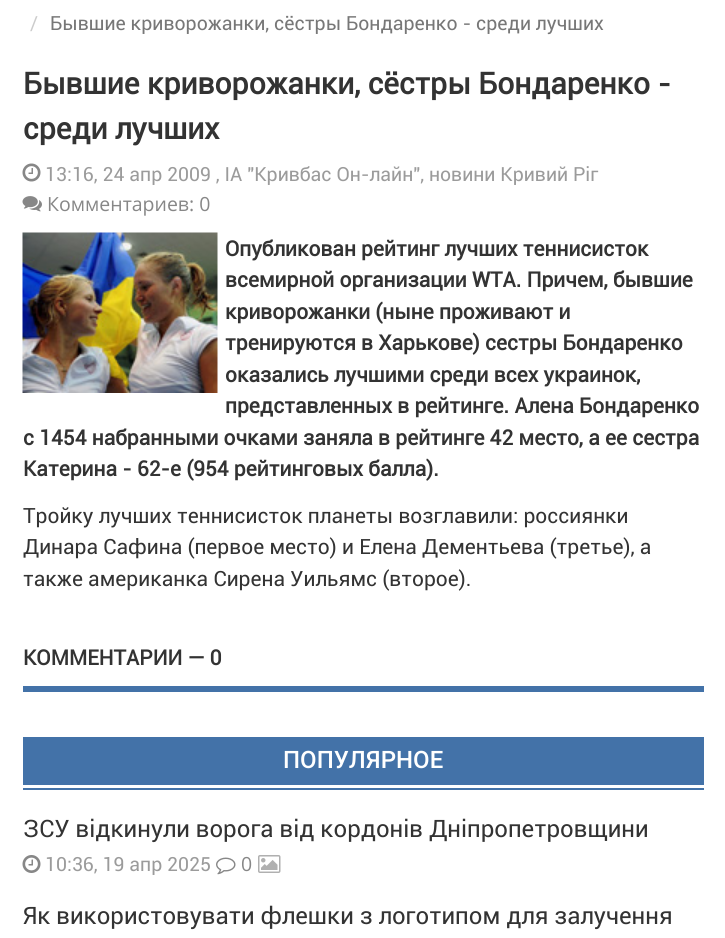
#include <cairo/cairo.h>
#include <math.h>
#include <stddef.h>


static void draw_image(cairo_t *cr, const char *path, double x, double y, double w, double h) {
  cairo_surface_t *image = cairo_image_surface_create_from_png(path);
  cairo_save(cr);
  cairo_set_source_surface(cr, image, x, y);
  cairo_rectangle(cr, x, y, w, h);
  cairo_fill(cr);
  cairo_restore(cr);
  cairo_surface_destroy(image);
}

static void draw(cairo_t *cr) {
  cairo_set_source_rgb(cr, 1, 1, 1);
  cairo_paint(cr);
  draw_image(cr, "images/1.png", 22, 163, 19, 19);
  draw_image(cr, "images/2.png", 22, 196, 20, 16);
  draw_image(cr, "images/3.png", 22, 232, 196, 161);
  cairo_set_source_rgb(cr, 67 / 255.0, 114 / 255.0, 168 / 255.0);
  cairo_rectangle(cr, 23, 686, 681, 6);
  cairo_fill(cr);
  cairo_rectangle(cr, 23, 737, 681, 48);
  cairo_fill(cr);
  cairo_rectangle(cr, 23, 788, 681, 2);
  cairo_fill(cr);
  draw_image(cr, "images/4.png", 22, 855, 19, 18);
  draw_image(cr, "images/5.png", 216, 857, 20, 18);
  draw_image(cr, "images/6.png", 258, 855, 23, 18);
  cairo_select_font_face(cr, "Roboto", CAIRO_FONT_SLANT_NORMAL, CAIRO_FONT_WEIGHT_NORMAL);
  cairo_set_font_size(cr, 19.5);
  cairo_set_source_rgb(cr, 204 / 255.0, 204 / 255.0, 204 / 255.0);
  cairo_move_to(cr, 30, 30);
  cairo_show_text(cr, "/");
  cairo_set_source_rgb(cr, 119 / 255.0, 119 / 255.0, 119 / 255.0);
  cairo_move_to(cr, 50, 30);
  cairo_show_text(cr, "Бывшие криворожанки, сёстры Бондаренко - среди лучших");
  cairo_select_font_face(cr, "Roboto", CAIRO_FONT_SLANT_NORMAL, CAIRO_FONT_WEIGHT_BOLD);
  cairo_set_font_size(cr, 30);
  cairo_set_source_rgb(cr, 51 / 255.0, 51 / 255.0, 51 / 255.0);
  cairo_move_to(cr, 23, 94);
  cairo_show_text(cr, "Бывшие криворожанки, сёстры Бондаренко -");
  cairo_move_to(cr, 23, 139);
  cairo_show_text(cr, "среди лучших");
  cairo_select_font_face(cr, "Roboto", CAIRO_FONT_SLANT_NORMAL, CAIRO_FONT_WEIGHT_NORMAL);
  cairo_set_font_size(cr, 19.5);
  cairo_set_source_rgb(cr, 155 / 255.0, 155 / 255.0, 155 / 255.0);
  cairo_move_to(cr, 45, 181);
  cairo_show_text(cr, "13:16, 24 апр 2009 , ІА \"Кривбас Он-лайн\", новини Кривий Ріг");
  cairo_select_font_face(cr, "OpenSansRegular", CAIRO_FONT_SLANT_NORMAL, CAIRO_FONT_WEIGHT_NORMAL);
  cairo_set_source_rgb(cr, 135 / 255.0, 135 / 255.0, 135 / 255.0);
  cairo_move_to(cr, 47, 211);
  cairo_show_text(cr, "Комментариев: 0");
  cairo_select_font_face(cr, "Roboto", CAIRO_FONT_SLANT_NORMAL, CAIRO_FONT_WEIGHT_BOLD);
  cairo_set_font_size(cr, 21);
  cairo_set_source_rgb(cr, 51 / 255.0, 51 / 255.0, 51 / 255.0);
  cairo_move_to(cr, 225, 256);
  cairo_show_text(cr, "Опубликован рейтинг лучших теннисисток");
  cairo_move_to(cr, 225, 287);
  cairo_show_text(cr, "всемирной организации WTA. Причем, бывшие");
  cairo_move_to(cr, 225, 319);
  cairo_show_text(cr, "криворожанки (ныне проживают и");
  cairo_move_to(cr, 225, 350);
  cairo_show_text(cr, "тренируются в Харькове) сестры Бондаренко");
  cairo_move_to(cr, 225, 382);
  cairo_show_text(cr, "оказались лучшими среди всех украинок,");
  cairo_move_to(cr, 225, 413);
  cairo_show_text(cr, "представленных в рейтинге. Алена Бондаренко");
  cairo_move_to(cr, 23, 445);
  cairo_show_text(cr, "с 1454 набранными очками заняла в рейтинге 42 место, а ее сестра");
  cairo_move_to(cr, 23, 476);
  cairo_show_text(cr, "Катерина - 62-е (954 рейтинговых балла).");
  cairo_select_font_face(cr, "Roboto", CAIRO_FONT_SLANT_NORMAL, CAIRO_FONT_WEIGHT_NORMAL);
  cairo_move_to(cr, 23, 523);
  cairo_show_text(cr, "Тройку лучших теннисисток планеты возглавили: россиянки");
  cairo_move_to(cr, 23, 554);
  cairo_show_text(cr, "Динара Сафина (первое место) и Елена Дементьева (третье), а");
  cairo_move_to(cr, 23, 586);
  cairo_show_text(cr, "также американка Сирена Уильямс (второе).");
  cairo_select_font_face(cr, "Roboto", CAIRO_FONT_SLANT_NORMAL, CAIRO_FONT_WEIGHT_BOLD);
  cairo_move_to(cr, 23, 665);
  cairo_show_text(cr, "КОММЕНТАРИИ — 0");
  cairo_select_font_face(cr, "Roboto Medium", CAIRO_FONT_SLANT_NORMAL, CAIRO_FONT_WEIGHT_NORMAL);
  cairo_set_font_size(cr, 24);
  cairo_set_source_rgb(cr, 1, 1, 1);
  cairo_move_to(cr, 283, 768);
  cairo_show_text(cr, "ПОПУЛЯРНОЕ");
  cairo_select_font_face(cr, "Roboto", CAIRO_FONT_SLANT_NORMAL, CAIRO_FONT_WEIGHT_NORMAL);
  cairo_set_source_rgb(cr, 51 / 255.0, 51 / 255.0, 51 / 255.0);
  cairo_move_to(cr, 23, 837);
  cairo_show_text(cr, "ЗСУ відкинули ворога від кордонів Дніпропетровщини");
  cairo_set_font_size(cr, 19.5);
  cairo_set_source_rgb(cr, 155 / 255.0, 155 / 255.0, 155 / 255.0);
  cairo_move_to(cr, 45, 871);
  cairo_show_text(cr, "10:36, 19 апр 2025");
  cairo_select_font_face(cr, "OpenSansRegular", CAIRO_FONT_SLANT_NORMAL, CAIRO_FONT_WEIGHT_NORMAL);
  cairo_set_source_rgb(cr, 135 / 255.0, 135 / 255.0, 135 / 255.0);
  cairo_move_to(cr, 241, 871);
  cairo_show_text(cr, "0");
  cairo_select_font_face(cr, "Roboto", CAIRO_FONT_SLANT_NORMAL, CAIRO_FONT_WEIGHT_NORMAL);
  cairo_set_font_size(cr, 24);
  cairo_set_source_rgb(cr, 51 / 255.0, 51 / 255.0, 51 / 255.0);
  cairo_move_to(cr, 23, 924);
  cairo_show_text(cr, "Як використовувати флешки з логотипом для залучення");
}

int main(void) {
  cairo_surface_t *surface = cairo_image_surface_create(CAIRO_FORMAT_RGB24, 725, 938);
  cairo_t *cr = cairo_create(surface);
  cairo_font_options_t *options = cairo_font_options_create();
  cairo_font_options_set_hint_metrics(options, CAIRO_HINT_METRICS_OFF);
  cairo_font_options_set_hint_style(options, CAIRO_HINT_STYLE_NONE);
  cairo_set_font_options(cr, options);
  cairo_set_miter_limit(cr, 4);
  draw(cr);
  cairo_surface_write_to_png(surface, "out.png");
  cairo_font_options_destroy(options);
  cairo_destroy(cr);
  cairo_surface_destroy(surface);
  return 0;
}
